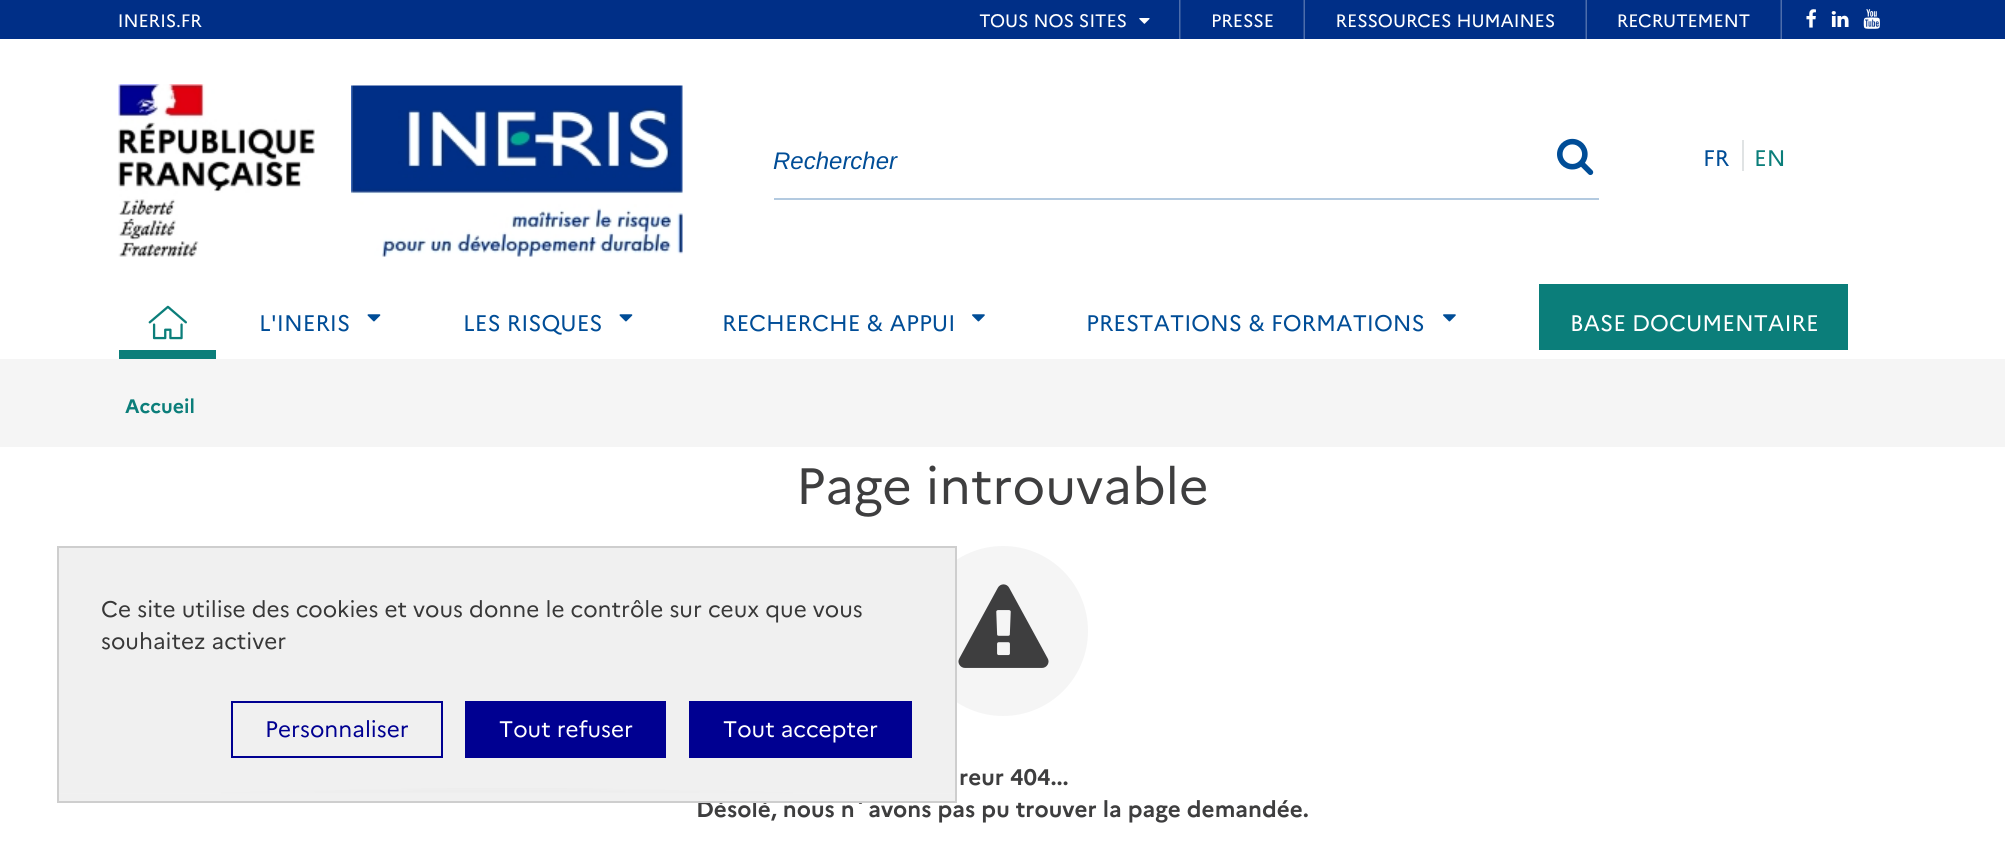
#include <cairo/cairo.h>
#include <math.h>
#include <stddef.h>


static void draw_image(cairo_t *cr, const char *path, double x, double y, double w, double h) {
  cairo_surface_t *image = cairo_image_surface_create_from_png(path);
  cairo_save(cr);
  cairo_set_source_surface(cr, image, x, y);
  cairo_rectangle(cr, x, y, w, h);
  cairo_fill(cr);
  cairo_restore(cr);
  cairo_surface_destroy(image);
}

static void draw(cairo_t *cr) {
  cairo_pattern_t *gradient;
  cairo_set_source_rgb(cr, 1, 1, 1);
  cairo_paint(cr);
  draw_image(cr, "images/1.png", 0, 0, 2005, 39);
  draw_image(cr, "images/2.png", 118, 84, 197, 173);
  draw_image(cr, "images/3.png", 351, 85, 332, 172);
  cairo_set_source_rgb(cr, 179 / 255.0, 202 / 255.0, 224 / 255.0);
  cairo_rectangle(cr, 774, 198, 825, 2);
  cairo_fill(cr);
  draw_image(cr, "images/4.png", 1557, 138, 37, 38);
  cairo_set_source_rgb(cr, 224 / 255.0, 227 / 255.0, 228 / 255.0);
  cairo_rectangle(cr, 1742, 140, 2, 31);
  cairo_fill(cr);
  draw_image(cr, "images/5.png", 148, 305, 39, 35);
  cairo_set_source_rgb(cr, 11 / 255.0, 126 / 255.0, 122 / 255.0);
  cairo_rectangle(cr, 119, 350, 97, 9);
  cairo_fill(cr);
  draw_image(cr, "images/6.png", 367, 314, 14, 8);
  draw_image(cr, "images/6.png", 619, 314, 14, 8);
  draw_image(cr, "images/7.png", 972, 314, 13, 8);
  draw_image(cr, "images/7.png", 1443, 314, 13, 8);
  cairo_rectangle(cr, 1539, 284, 309, 66);
  cairo_fill(cr);
  cairo_set_source_rgb(cr, 245 / 255.0, 245 / 255.0, 245 / 255.0);
  cairo_rectangle(cr, 0, 359, 2005, 88);
  cairo_fill(cr);
  cairo_arc(cr, 1003, 631, 85, 0, 2 * M_PI);
  cairo_fill(cr);
  draw_image(cr, "images/8.png", 958, 584, 91, 84);
  cairo_set_source_rgb(cr, 240 / 255.0, 240 / 255.0, 240 / 255.0);
  cairo_rectangle(cr, 59, 555, 896, 233);
  cairo_fill(cr);
  gradient = cairo_pattern_create_radial(0, 0, 0, 0, 0, 1);
  cairo_pattern_set_matrix(gradient, &(cairo_matrix_t){1.0 / 450, 0, 0, 1.0 / 15, -1.0 * 507 / 450, -1.0 * 803 / 15});
  cairo_pattern_add_color_stop_rgba(gradient, 0, 137 / 255.0, 137 / 255.0, 137 / 255.0, 1);
  cairo_pattern_add_color_stop_rgba(gradient, 1, 240 / 255.0, 240 / 255.0, 240 / 255.0, 1);
  cairo_set_source(cr, gradient);
  cairo_pattern_destroy(gradient);
  cairo_rectangle(cr, 59, 788, 896, 6);
  cairo_fill(cr);
  gradient = cairo_pattern_create_linear(507, 546, 507, 573);
  cairo_pattern_add_color_stop_rgba(gradient, 0.33, 240 / 255.0, 240 / 255.0, 240 / 255.0, 1);
  cairo_pattern_add_color_stop_rgba(gradient, 1, 240 / 255.0, 240 / 255.0, 240 / 255.0, 0);
  cairo_set_source(cr, gradient);
  cairo_pattern_destroy(gradient);
  cairo_rectangle(cr, 59, 548, 896, 7);
  cairo_fill(cr);
  cairo_select_font_face(cr, "Liberation Sans", CAIRO_FONT_SLANT_ITALIC, CAIRO_FONT_WEIGHT_NORMAL);
  cairo_set_font_size(cr, 24);
  cairo_set_source_rgb(cr, 0, 77 / 255.0, 151 / 255.0);
  cairo_move_to(cr, 773, 169);
  cairo_show_text(cr, "Rechercher");
  cairo_select_font_face(cr, "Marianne", CAIRO_FONT_SLANT_NORMAL, CAIRO_FONT_WEIGHT_NORMAL);
  cairo_set_font_size(cr, 22.5);
  cairo_move_to(cr, 1703, 166);
  cairo_show_text(cr, "FR");
  cairo_set_source_rgb(cr, 11 / 255.0, 126 / 255.0, 122 / 255.0);
  cairo_move_to(cr, 1754, 166);
  cairo_show_text(cr, "EN");
  cairo_set_source_rgb(cr, 0, 77 / 255.0, 151 / 255.0);
  cairo_move_to(cr, 259, 331);
  cairo_show_text(cr, "L'INERIS");
  cairo_move_to(cr, 463, 331);
  cairo_show_text(cr, "LES RISQUES");
  cairo_move_to(cr, 722, 331);
  cairo_show_text(cr, "RECHERCHE & APPUI");
  cairo_move_to(cr, 1086, 331);
  cairo_show_text(cr, "PRESTATIONS & FORMATIONS");
  cairo_set_source_rgb(cr, 1, 1, 1);
  cairo_move_to(cr, 1570, 331);
  cairo_show_text(cr, "BASE DOCUMENTAIRE");
  cairo_select_font_face(cr, "Marianne", CAIRO_FONT_SLANT_NORMAL, CAIRO_FONT_WEIGHT_BOLD);
  cairo_set_font_size(cr, 19.5);
  cairo_set_source_rgb(cr, 11 / 255.0, 126 / 255.0, 122 / 255.0);
  cairo_move_to(cr, 125, 413);
  cairo_show_text(cr, "Accueil");
  cairo_select_font_face(cr, "Marianne", CAIRO_FONT_SLANT_NORMAL, CAIRO_FONT_WEIGHT_NORMAL);
  cairo_set_font_size(cr, 51);
  cairo_set_source_rgb(cr, 62 / 255.0, 62 / 255.0, 63 / 255.0);
  cairo_move_to(cr, 796, 504);
  cairo_show_text(cr, "Page introuvable");
  cairo_select_font_face(cr, "Marianne", CAIRO_FONT_SLANT_NORMAL, CAIRO_FONT_WEIGHT_BOLD);
  cairo_set_font_size(cr, 22.5);
  cairo_move_to(cr, 959, 785);
  cairo_show_text(cr, "reur 404...");
  cairo_move_to(cr, 696, 817);
  cairo_show_text(cr, "Désolé, nous n´avons pas pu trouver la page demandée.");
  gradient = cairo_pattern_create_linear(507, 776, 507, 803);
  cairo_pattern_add_color_stop_rgba(gradient, 0, 240 / 255.0, 240 / 255.0, 240 / 255.0, 0);
  cairo_pattern_add_color_stop_rgba(gradient, 0.66, 240 / 255.0, 240 / 255.0, 240 / 255.0, 1);
  cairo_set_source(cr, gradient);
  cairo_pattern_destroy(gradient);
  cairo_rectangle(cr, 59, 789, 896, 12);
  cairo_fill(cr);
  cairo_rectangle(cr, 58, 547, 898, 255);
  cairo_set_source_rgb(cr, 206 / 255.0, 206 / 255.0, 206 / 255.0);
  cairo_stroke(cr);
  cairo_select_font_face(cr, "Marianne", CAIRO_FONT_SLANT_NORMAL, CAIRO_FONT_WEIGHT_NORMAL);
  cairo_set_source_rgb(cr, 56 / 255.0, 56 / 255.0, 56 / 255.0);
  cairo_move_to(cr, 101, 617);
  cairo_show_text(cr, "Ce site utilise des cookies et vous donne le contrôle sur ceux que vous");
  cairo_move_to(cr, 101, 649);
  cairo_show_text(cr, "souhaitez activer");
  cairo_rectangle(cr, 232, 702, 210, 55);
  cairo_set_source_rgb(cr, 0, 0, 145 / 255.0);
  cairo_stroke(cr);
  cairo_move_to(cr, 265, 737);
  cairo_show_text(cr, "Personnaliser");
  cairo_rectangle(cr, 465, 701, 201, 57);
  cairo_fill(cr);
  cairo_set_source_rgb(cr, 1, 1, 1);
  cairo_move_to(cr, 499, 737);
  cairo_show_text(cr, "Tout refuser");
  cairo_set_source_rgb(cr, 0, 0, 145 / 255.0);
  cairo_rectangle(cr, 689, 701, 223, 57);
  cairo_fill(cr);
  cairo_set_source_rgb(cr, 1, 1, 1);
  cairo_move_to(cr, 723, 737);
  cairo_show_text(cr, "Tout accepter");
}

int main(void) {
  cairo_surface_t *surface = cairo_image_surface_create(CAIRO_FORMAT_RGB24, 2005, 858);
  cairo_t *cr = cairo_create(surface);
  cairo_font_options_t *options = cairo_font_options_create();
  cairo_font_options_set_hint_metrics(options, CAIRO_HINT_METRICS_OFF);
  cairo_font_options_set_hint_style(options, CAIRO_HINT_STYLE_NONE);
  cairo_set_font_options(cr, options);
  cairo_set_miter_limit(cr, 4);
  draw(cr);
  cairo_surface_write_to_png(surface, "out.png");
  cairo_font_options_destroy(options);
  cairo_destroy(cr);
  cairo_surface_destroy(surface);
  return 0;
}
